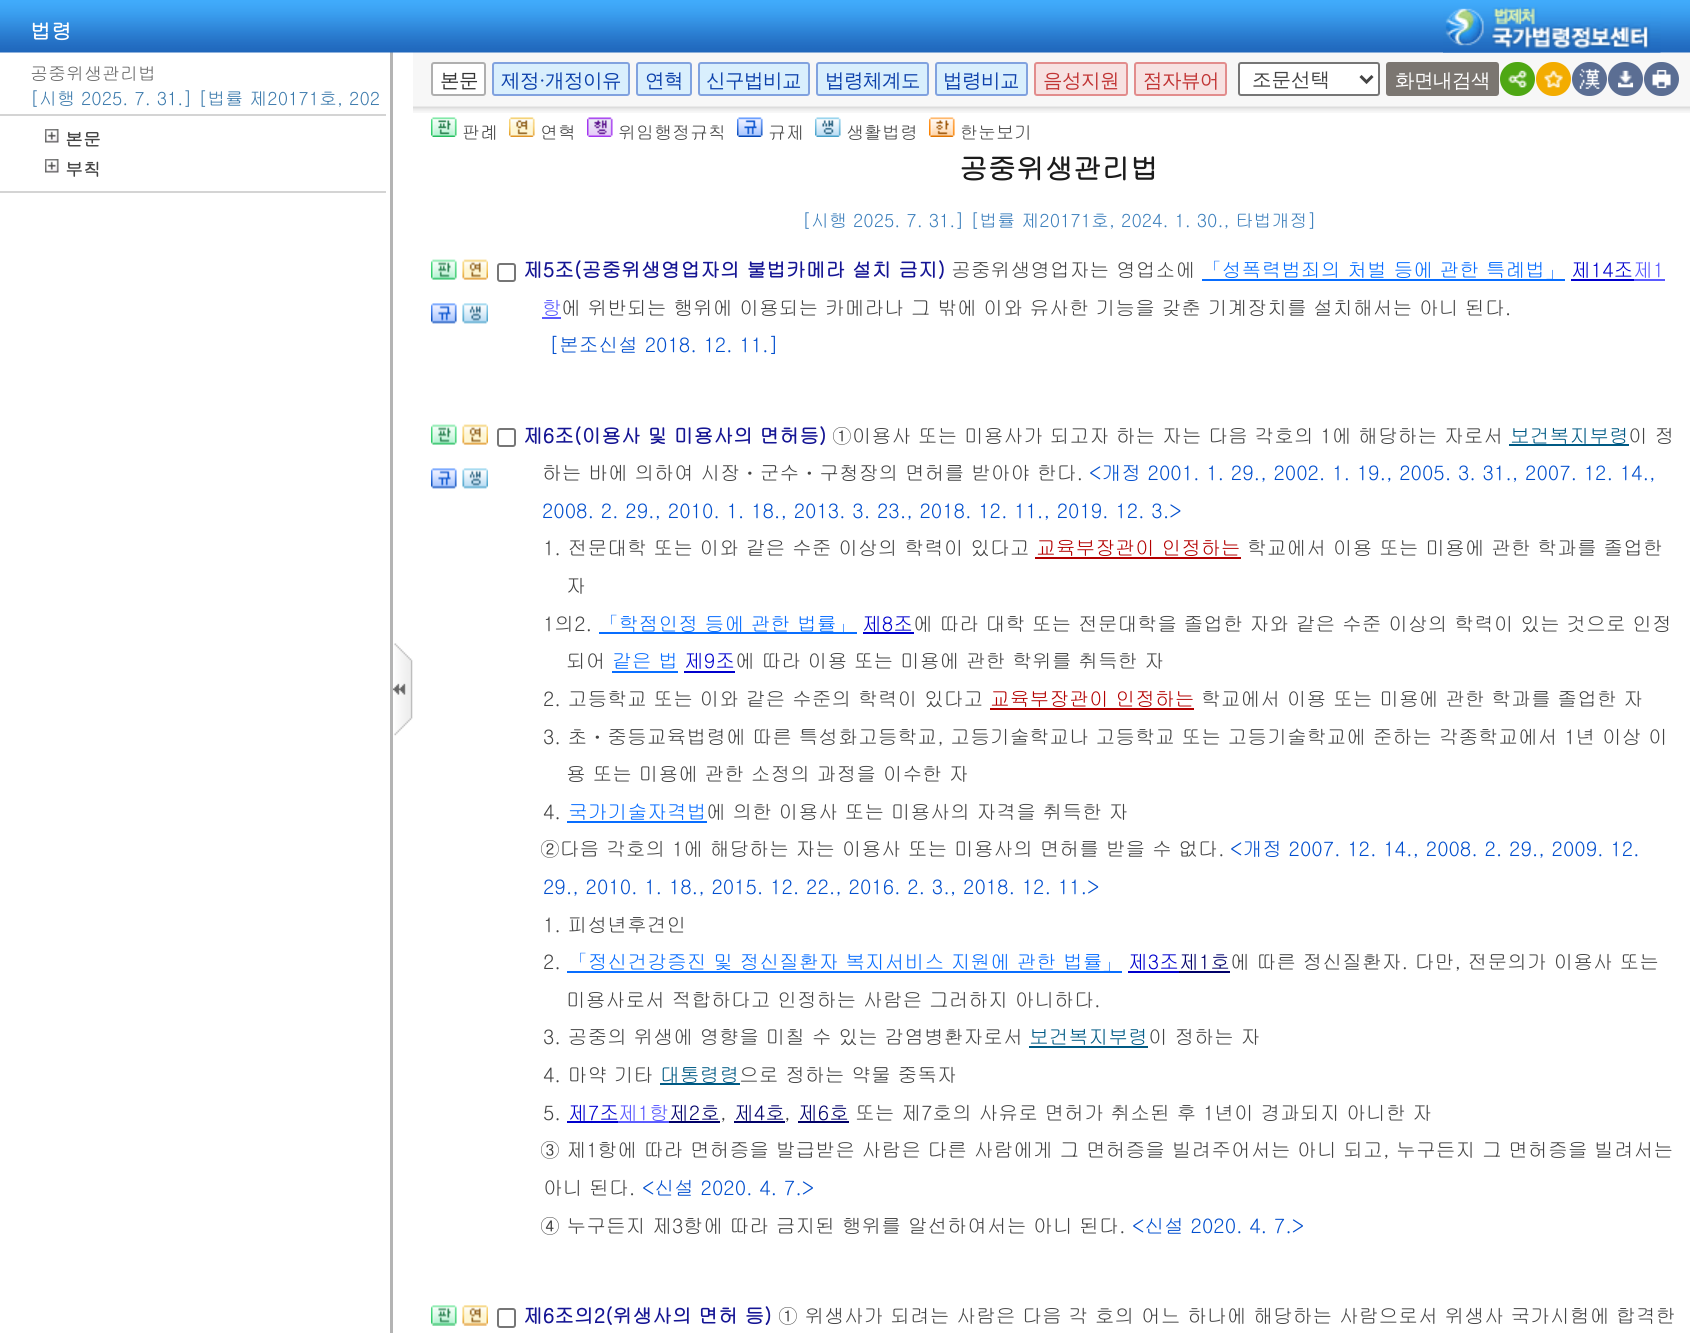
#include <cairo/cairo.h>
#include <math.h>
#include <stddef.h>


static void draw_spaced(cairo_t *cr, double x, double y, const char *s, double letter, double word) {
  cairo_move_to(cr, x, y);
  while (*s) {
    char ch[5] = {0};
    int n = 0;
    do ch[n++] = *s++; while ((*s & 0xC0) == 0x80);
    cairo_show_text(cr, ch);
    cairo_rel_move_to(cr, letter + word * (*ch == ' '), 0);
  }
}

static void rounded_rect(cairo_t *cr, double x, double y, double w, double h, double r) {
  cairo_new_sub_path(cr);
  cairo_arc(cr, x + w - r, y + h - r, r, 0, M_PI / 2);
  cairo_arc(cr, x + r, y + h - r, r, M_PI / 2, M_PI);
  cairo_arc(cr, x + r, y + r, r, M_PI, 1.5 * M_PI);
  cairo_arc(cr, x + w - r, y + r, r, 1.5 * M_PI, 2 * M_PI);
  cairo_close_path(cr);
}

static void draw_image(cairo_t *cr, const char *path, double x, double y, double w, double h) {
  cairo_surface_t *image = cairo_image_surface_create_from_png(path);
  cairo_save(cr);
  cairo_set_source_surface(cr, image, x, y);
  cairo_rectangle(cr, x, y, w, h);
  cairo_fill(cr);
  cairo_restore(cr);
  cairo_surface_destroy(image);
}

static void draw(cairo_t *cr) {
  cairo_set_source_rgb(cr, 1, 1, 1);
  cairo_paint(cr);
  cairo_set_source_rgb(cr, 247 / 255.0, 247 / 255.0, 247 / 255.0);
  cairo_rectangle(cr, 413, 52, 1277, 61);
  cairo_fill(cr);
  cairo_set_source_rgb(cr, 180 / 255.0, 180 / 255.0, 180 / 255.0);
  cairo_rectangle(cr, 390, 51, 3, 1282);
  cairo_fill(cr);
  draw_image(cr, "images/1.png", 0, 0, 1690, 53);
  draw_image(cr, "images/2.png", 1443, 7, 218, 46);
  cairo_set_source_rgb(cr, 212 / 255.0, 212 / 255.0, 212 / 255.0);
  cairo_rectangle(cr, 0, 191, 386, 2);
  cairo_fill(cr);
  cairo_rectangle(cr, 0, 114, 386, 2);
  cairo_fill(cr);
  draw_image(cr, "images/3.png", 45, 129, 14, 14);
  draw_image(cr, "images/3.png", 45, 159, 14, 14);
  draw_image(cr, "images/4.png", 413, 106, 1277, 6);
  cairo_set_source_rgb(cr, 1, 1, 1);
  rounded_rect(cr, 432, 63, 53, 32, 2);
  cairo_fill_preserve(cr);
  cairo_set_source_rgb(cr, 175 / 255.0, 175 / 255.0, 175 / 255.0);
  cairo_stroke(cr);
  cairo_set_source_rgb(cr, 217 / 255.0, 239 / 255.0, 253 / 255.0);
  rounded_rect(cr, 493, 63, 136, 32, 2);
  cairo_fill_preserve(cr);
  cairo_set_source_rgb(cr, 129 / 255.0, 162 / 255.0, 223 / 255.0);
  cairo_stroke(cr);
  cairo_set_source_rgb(cr, 217 / 255.0, 239 / 255.0, 253 / 255.0);
  rounded_rect(cr, 637, 63, 54, 32, 2);
  cairo_fill_preserve(cr);
  cairo_set_source_rgb(cr, 129 / 255.0, 162 / 255.0, 223 / 255.0);
  cairo_stroke(cr);
  cairo_set_source_rgb(cr, 217 / 255.0, 239 / 255.0, 253 / 255.0);
  rounded_rect(cr, 699, 63, 110, 32, 2);
  cairo_fill_preserve(cr);
  cairo_set_source_rgb(cr, 129 / 255.0, 162 / 255.0, 223 / 255.0);
  cairo_stroke(cr);
  cairo_set_source_rgb(cr, 217 / 255.0, 239 / 255.0, 253 / 255.0);
  rounded_rect(cr, 817, 63, 111, 32, 2);
  cairo_fill_preserve(cr);
  cairo_set_source_rgb(cr, 129 / 255.0, 162 / 255.0, 223 / 255.0);
  cairo_stroke(cr);
  cairo_set_source_rgb(cr, 217 / 255.0, 239 / 255.0, 253 / 255.0);
  rounded_rect(cr, 936, 63, 91, 32, 2);
  cairo_fill_preserve(cr);
  cairo_set_source_rgb(cr, 129 / 255.0, 162 / 255.0, 223 / 255.0);
  cairo_stroke(cr);
  cairo_set_source_rgb(cr, 247 / 255.0, 226 / 255.0, 226 / 255.0);
  rounded_rect(cr, 1035, 63, 92, 32, 2);
  cairo_fill_preserve(cr);
  cairo_set_source_rgb(cr, 226 / 255.0, 141 / 255.0, 141 / 255.0);
  cairo_stroke(cr);
  cairo_set_source_rgb(cr, 247 / 255.0, 226 / 255.0, 226 / 255.0);
  rounded_rect(cr, 1135, 63, 91, 32, 2);
  cairo_fill_preserve(cr);
  cairo_set_source_rgb(cr, 226 / 255.0, 141 / 255.0, 141 / 255.0);
  cairo_stroke(cr);
  cairo_set_source_rgb(cr, 1, 1, 1);
  rounded_rect(cr, 1239, 63, 140, 32, 2);
  cairo_fill_preserve(cr);
  cairo_set_source_rgb(cr, 118 / 255.0, 118 / 255.0, 118 / 255.0);
  cairo_stroke(cr);
  cairo_new_path(cr);
  cairo_move_to(cr, 1360.5, 76);
  cairo_line_to(cr, 1366.5, 82);
  cairo_line_to(cr, 1372.5, 76);
  cairo_set_source_rgb(cr, 68 / 255.0, 68 / 255.0, 68 / 255.0);
  cairo_set_line_width(cr, 3);
  cairo_stroke(cr);
  cairo_set_source_rgb(cr, 123 / 255.0, 118 / 255.0, 113 / 255.0);
  rounded_rect(cr, 1387, 63, 111, 32, 2);
  cairo_fill_preserve(cr);
  cairo_set_line_width(cr, 2);
  cairo_stroke(cr);
  cairo_set_source_rgb(cr, 78 / 255.0, 167 / 255.0, 19 / 255.0);
  rounded_rect(cr, 1500, 62, 35, 34, 17);
  cairo_fill(cr);
  draw_image(cr, "images/5.png", 1508, 70, 19, 18);
  cairo_set_source_rgb(cr, 243 / 255.0, 172 / 255.0, 0);
  rounded_rect(cr, 1536, 62, 35, 34, 17);
  cairo_fill(cr);
  draw_image(cr, "images/6.png", 1544, 70, 19, 18);
  cairo_set_source_rgb(cr, 91 / 255.0, 110 / 255.0, 147 / 255.0);
  rounded_rect(cr, 1572, 62, 35, 34, 17);
  cairo_fill(cr);
  draw_image(cr, "images/7.png", 1579, 69, 21, 20);
  rounded_rect(cr, 1608, 62, 35, 34, 17);
  cairo_fill(cr);
  draw_image(cr, "images/8.png", 1618, 70, 16, 18);
  rounded_rect(cr, 1644, 62, 35, 34, 17);
  cairo_fill(cr);
  draw_image(cr, "images/9.png", 1652, 70, 19, 19);
  draw_image(cr, "images/10.png", 431, 117, 26, 20);
  draw_image(cr, "images/11.png", 509, 117, 26, 20);
  draw_image(cr, "images/12.png", 587, 117, 26, 20);
  draw_image(cr, "images/13.png", 737, 117, 26, 20);
  draw_image(cr, "images/14.png", 815, 117, 26, 20);
  draw_image(cr, "images/15.png", 929, 117, 26, 20);
  draw_image(cr, "images/16.png", 431, 259, 26, 21);
  draw_image(cr, "images/17.png", 462, 259, 26, 21);
  draw_image(cr, "images/18.png", 431, 303, 26, 21);
  draw_image(cr, "images/19.png", 462, 303, 26, 21);
  rounded_rect(cr, 498, 264, 17, 17, 2);
  cairo_set_source_rgb(cr, 118 / 255.0, 118 / 255.0, 118 / 255.0);
  cairo_stroke(cr);
  cairo_set_source_rgb(cr, 8 / 255.0, 109 / 255.0, 1);
  cairo_rectangle(cr, 1202, 279, 363, 2);
  cairo_fill(cr);
  cairo_set_source_rgb(cr, 0, 0, 205 / 255.0);
  cairo_rectangle(cr, 1571, 279, 63, 2);
  cairo_fill(cr);
  cairo_set_source_rgb(cr, 90 / 255.0, 90 / 255.0, 1);
  cairo_rectangle(cr, 1634, 279, 31, 2);
  cairo_fill(cr);
  cairo_rectangle(cr, 542, 317, 19, 2);
  cairo_fill(cr);
  draw_image(cr, "images/16.png", 431, 424, 26, 21);
  draw_image(cr, "images/17.png", 462, 424, 26, 21);
  draw_image(cr, "images/18.png", 431, 468, 26, 21);
  draw_image(cr, "images/19.png", 462, 468, 26, 21);
  rounded_rect(cr, 498, 429, 17, 17, 2);
  cairo_set_source_rgb(cr, 118 / 255.0, 118 / 255.0, 118 / 255.0);
  cairo_stroke(cr);
  cairo_set_source_rgb(cr, 0, 90 / 255.0, 132 / 255.0);
  cairo_rectangle(cr, 1509, 444, 120, 2);
  cairo_fill(cr);
  cairo_set_source_rgb(cr, 179 / 255.0, 0, 0);
  cairo_rectangle(cr, 1035, 557, 206, 2);
  cairo_fill(cr);
  cairo_set_source_rgb(cr, 8 / 255.0, 109 / 255.0, 1);
  cairo_rectangle(cr, 599, 632, 258, 2);
  cairo_fill(cr);
  cairo_set_source_rgb(cr, 0, 0, 205 / 255.0);
  cairo_rectangle(cr, 863, 632, 51, 2);
  cairo_fill(cr);
  cairo_set_source_rgb(cr, 8 / 255.0, 109 / 255.0, 1);
  cairo_rectangle(cr, 612, 671, 66, 2);
  cairo_fill(cr);
  cairo_set_source_rgb(cr, 0, 0, 205 / 255.0);
  cairo_rectangle(cr, 684, 671, 51, 2);
  cairo_fill(cr);
  cairo_set_source_rgb(cr, 179 / 255.0, 0, 0);
  cairo_rectangle(cr, 990, 708, 204, 2);
  cairo_fill(cr);
  cairo_set_source_rgb(cr, 8 / 255.0, 109 / 255.0, 1);
  cairo_rectangle(cr, 567, 821, 140, 2);
  cairo_fill(cr);
  cairo_rectangle(cr, 567, 971, 555, 2);
  cairo_fill(cr);
  cairo_set_source_rgb(cr, 0, 0, 205 / 255.0);
  cairo_rectangle(cr, 1128, 971, 51, 2);
  cairo_fill(cr);
  cairo_set_source_rgb(cr, 0, 0, 105 / 255.0);
  cairo_rectangle(cr, 1179, 971, 51, 2);
  cairo_fill(cr);
  cairo_set_source_rgb(cr, 0, 90 / 255.0, 132 / 255.0);
  cairo_rectangle(cr, 1029, 1046, 119, 2);
  cairo_fill(cr);
  cairo_rectangle(cr, 660, 1083, 80, 2);
  cairo_fill(cr);
  cairo_set_source_rgb(cr, 0, 0, 205 / 255.0);
  cairo_rectangle(cr, 567, 1121, 51, 2);
  cairo_fill(cr);
  cairo_set_source_rgb(cr, 90 / 255.0, 90 / 255.0, 1);
  cairo_rectangle(cr, 618, 1121, 51, 2);
  cairo_fill(cr);
  cairo_set_source_rgb(cr, 0, 0, 105 / 255.0);
  cairo_rectangle(cr, 669, 1121, 51, 2);
  cairo_fill(cr);
  cairo_rectangle(cr, 734, 1121, 51, 2);
  cairo_fill(cr);
  cairo_rectangle(cr, 798, 1121, 51, 2);
  cairo_fill(cr);
  draw_image(cr, "images/20.png", 431, 1305, 26, 21);
  draw_image(cr, "images/21.png", 462, 1305, 26, 21);
  rounded_rect(cr, 498, 1309, 17, 18, 2);
  cairo_set_source_rgb(cr, 118 / 255.0, 118 / 255.0, 118 / 255.0);
  cairo_stroke(cr);
  draw_image(cr, "images/22.png", 393, 643, 20, 93);
  cairo_select_font_face(cr, "Gulim", CAIRO_FONT_SLANT_NORMAL, CAIRO_FONT_WEIGHT_BOLD);
  cairo_set_font_size(cr, 21);
  cairo_set_source_rgb(cr, 1, 1, 1);
  cairo_move_to(cr, 30, 39);
  cairo_show_text(cr, "법령");
  cairo_select_font_face(cr, "Gulim", CAIRO_FONT_SLANT_NORMAL, CAIRO_FONT_WEIGHT_NORMAL);
  cairo_set_font_size(cr, 18);
  cairo_set_source_rgb(cr, 102 / 255.0, 102 / 255.0, 102 / 255.0);
  cairo_move_to(cr, 30, 80);
  cairo_show_text(cr, "공중위생관리법");
  cairo_set_source_rgb(cr, 60 / 255.0, 122 / 255.0, 172 / 255.0);
  cairo_move_to(cr, 30, 105);
  cairo_show_text(cr, "[시행 2025. 7. 31.] [법률 제20171호, 202");
  cairo_select_font_face(cr, "Gulim", CAIRO_FONT_SLANT_NORMAL, CAIRO_FONT_WEIGHT_BOLD);
  cairo_set_source_rgb(cr, 68 / 255.0, 68 / 255.0, 68 / 255.0);
  cairo_move_to(cr, 65, 146);
  cairo_show_text(cr, "본문");
  cairo_move_to(cr, 65, 176);
  cairo_show_text(cr, "부칙");
  cairo_select_font_face(cr, "WenQuanYi Zen Hei Medium", CAIRO_FONT_SLANT_NORMAL, CAIRO_FONT_WEIGHT_NORMAL);
  cairo_set_font_size(cr, 19.5);
  cairo_set_source_rgb(cr, 51 / 255.0, 51 / 255.0, 51 / 255.0);
  draw_spaced(cr, 440, 87, "본문", -0.5, 0);
  cairo_set_source_rgb(cr, 13 / 255.0, 65 / 255.0, 171 / 255.0);
  draw_spaced(cr, 501, 87, "제정", -0.5, 0);
  cairo_select_font_face(cr, "Liberation Serif", CAIRO_FONT_SLANT_NORMAL, CAIRO_FONT_WEIGHT_NORMAL);
  draw_spaced(cr, 539, 87, "·", -0.5, 0);
  cairo_select_font_face(cr, "WenQuanYi Zen Hei Medium", CAIRO_FONT_SLANT_NORMAL, CAIRO_FONT_WEIGHT_NORMAL);
  draw_spaced(cr, 545, 87, "개정이유", -0.5, 0);
  draw_spaced(cr, 645, 87, "연혁", -0.5, 0);
  draw_spaced(cr, 706, 87, "신구법비교", -0.5, 0);
  draw_spaced(cr, 825, 87, "법령체계도", -0.5, 0);
  draw_spaced(cr, 943, 87, "법령비교", -0.5, 0);
  cairo_set_source_rgb(cr, 193 / 255.0, 53 / 255.0, 53 / 255.0);
  draw_spaced(cr, 1043, 87, "음성지원", -0.5, 0);
  draw_spaced(cr, 1143, 87, "점자뷰어", -0.5, 0);
  cairo_set_source_rgb(cr, 68 / 255.0, 68 / 255.0, 68 / 255.0);
  cairo_move_to(cr, 1252, 86);
  cairo_show_text(cr, "조문선택");
  cairo_set_source_rgb(cr, 1, 1, 1);
  draw_spaced(cr, 1395, 87, "화면내검색", -0.5, 0);
  cairo_select_font_face(cr, "Gulim", CAIRO_FONT_SLANT_NORMAL, CAIRO_FONT_WEIGHT_NORMAL);
  cairo_set_font_size(cr, 18);
  cairo_set_source_rgb(cr, 68 / 255.0, 68 / 255.0, 68 / 255.0);
  cairo_move_to(cr, 462, 139);
  cairo_show_text(cr, "판례");
  cairo_move_to(cr, 540, 139);
  cairo_show_text(cr, "연혁");
  cairo_move_to(cr, 618, 139);
  cairo_show_text(cr, "위임행정규칙");
  cairo_move_to(cr, 768, 139);
  cairo_show_text(cr, "규제");
  cairo_move_to(cr, 846, 139);
  cairo_show_text(cr, "생활법령");
  cairo_move_to(cr, 960, 139);
  cairo_show_text(cr, "한눈보기");
  cairo_select_font_face(cr, "Gulim", CAIRO_FONT_SLANT_NORMAL, CAIRO_FONT_WEIGHT_BOLD);
  cairo_set_font_size(cr, 28.5);
  cairo_set_source_rgb(cr, 28 / 255.0, 28 / 255.0, 28 / 255.0);
  cairo_move_to(cr, 959, 179);
  cairo_show_text(cr, "공중위생관리법");
  cairo_select_font_face(cr, "Gulim", CAIRO_FONT_SLANT_NORMAL, CAIRO_FONT_WEIGHT_NORMAL);
  cairo_set_font_size(cr, 18);
  cairo_set_source_rgb(cr, 60 / 255.0, 127 / 255.0, 188 / 255.0);
  cairo_move_to(cr, 802, 227);
  cairo_show_text(cr, "[시행 2025. 7. 31.] [법률 제20171호, 2024. 1. 30., 타법개정]");
  cairo_select_font_face(cr, "Gulim", CAIRO_FONT_SLANT_NORMAL, CAIRO_FONT_WEIGHT_BOLD);
  cairo_set_font_size(cr, 19.8);
  cairo_set_source_rgb(cr, 21 / 255.0, 21 / 255.0, 148 / 255.0);
  cairo_move_to(cr, 523, 277);
  cairo_show_text(cr, "제5조(공중위생영업자의 불법카메라 설치 금지)");
  cairo_select_font_face(cr, "Gulim", CAIRO_FONT_SLANT_NORMAL, CAIRO_FONT_WEIGHT_NORMAL);
  cairo_set_source_rgb(cr, 68 / 255.0, 68 / 255.0, 68 / 255.0);
  cairo_move_to(cr, 951, 277);
  cairo_show_text(cr, "공중위생영업자는 영업소에");
  cairo_set_source_rgb(cr, 8 / 255.0, 109 / 255.0, 1);
  cairo_move_to(cr, 1202, 277);
  cairo_show_text(cr, "「성폭력범죄의 처벌 등에 관한 특례법」");
  cairo_set_source_rgb(cr, 0, 0, 205 / 255.0);
  cairo_move_to(cr, 1571, 277);
  cairo_show_text(cr, "제14조");
  cairo_set_source_rgb(cr, 90 / 255.0, 90 / 255.0, 1);
  cairo_move_to(cr, 1633, 277);
  cairo_show_text(cr, "제1");
  cairo_move_to(cr, 542, 315);
  cairo_show_text(cr, "항");
  cairo_set_source_rgb(cr, 68 / 255.0, 68 / 255.0, 68 / 255.0);
  cairo_move_to(cr, 561, 315);
  cairo_show_text(cr, "에 위반되는 행위에 이용되는 카메라나 그 밖에 이와 유사한 기능을 갖춘 기계장치를 설치해서는 아니 된다.");
  cairo_set_source_rgb(cr, 2 / 255.0, 79 / 255.0, 206 / 255.0);
  cairo_move_to(cr, 549, 352);
  cairo_show_text(cr, "[본조신설 2018. 12. 11.]");
  cairo_select_font_face(cr, "Gulim", CAIRO_FONT_SLANT_NORMAL, CAIRO_FONT_WEIGHT_BOLD);
  cairo_set_source_rgb(cr, 21 / 255.0, 21 / 255.0, 148 / 255.0);
  cairo_move_to(cr, 523, 443);
  cairo_show_text(cr, "제6조(이용사 및 미용사의 면허등)");
  cairo_select_font_face(cr, "Gulim", CAIRO_FONT_SLANT_NORMAL, CAIRO_FONT_WEIGHT_NORMAL);
  cairo_set_source_rgb(cr, 68 / 255.0, 68 / 255.0, 68 / 255.0);
  cairo_move_to(cr, 832, 443);
  cairo_show_text(cr, "①이용사 또는 미용사가 되고자 하는 자는 다음 각호의 1에 해당하는 자로서");
  cairo_set_source_rgb(cr, 0, 90 / 255.0, 132 / 255.0);
  cairo_move_to(cr, 1510, 443);
  cairo_show_text(cr, "보건복지부령");
  cairo_set_source_rgb(cr, 68 / 255.0, 68 / 255.0, 68 / 255.0);
  cairo_move_to(cr, 1628, 443);
  cairo_show_text(cr, "이 정");
  cairo_move_to(cr, 542, 480);
  cairo_show_text(cr, "하는 바에 의하여 시장ㆍ군수ㆍ구청장의 면허를 받아야 한다.");
  cairo_set_source_rgb(cr, 2 / 255.0, 79 / 255.0, 206 / 255.0);
  cairo_move_to(cr, 1089, 480);
  cairo_show_text(cr, "<개정 2001. 1. 29., 2002. 1. 19., 2005. 3. 31., 2007. 12. 14.,");
  cairo_move_to(cr, 542, 518);
  cairo_show_text(cr, "2008. 2. 29., 2010. 1. 18., 2013. 3. 23., 2018. 12. 11., 2019. 12. 3.>");
  cairo_set_source_rgb(cr, 68 / 255.0, 68 / 255.0, 68 / 255.0);
  cairo_move_to(cr, 543, 555);
  cairo_show_text(cr, "1. 전문대학 또는 이와 같은 수준 이상의 학력이 있다고");
  cairo_set_source_rgb(cr, 179 / 255.0, 0, 0);
  cairo_move_to(cr, 1036, 555);
  cairo_show_text(cr, "교육부장관이 인정하는");
  cairo_set_source_rgb(cr, 68 / 255.0, 68 / 255.0, 68 / 255.0);
  cairo_move_to(cr, 1247, 555);
  cairo_show_text(cr, "학교에서 이용 또는 미용에 관한 학과를 졸업한");
  cairo_move_to(cr, 566, 593);
  cairo_show_text(cr, "자");
  cairo_move_to(cr, 543, 631);
  cairo_show_text(cr, "1의2.");
  cairo_set_source_rgb(cr, 8 / 255.0, 109 / 255.0, 1);
  cairo_move_to(cr, 599, 631);
  cairo_show_text(cr, "「학점인정 등에 관한 법률」");
  cairo_set_source_rgb(cr, 0, 0, 205 / 255.0);
  cairo_move_to(cr, 862, 631);
  cairo_show_text(cr, "제8조");
  cairo_set_source_rgb(cr, 68 / 255.0, 68 / 255.0, 68 / 255.0);
  cairo_move_to(cr, 913, 631);
  cairo_show_text(cr, "에 따라 대학 또는 전문대학을 졸업한 자와 같은 수준 이상의 학력이 있는 것으로 인정");
  cairo_move_to(cr, 566, 668);
  cairo_show_text(cr, "되어");
  cairo_set_source_rgb(cr, 8 / 255.0, 109 / 255.0, 1);
  cairo_move_to(cr, 612, 668);
  cairo_show_text(cr, "같은 법");
  cairo_set_source_rgb(cr, 0, 0, 205 / 255.0);
  cairo_move_to(cr, 684, 668);
  cairo_show_text(cr, "제9조");
  cairo_set_source_rgb(cr, 68 / 255.0, 68 / 255.0, 68 / 255.0);
  cairo_move_to(cr, 735, 668);
  cairo_show_text(cr, "에 따라 이용 또는 미용에 관한 학위를 취득한 자");
  cairo_move_to(cr, 543, 706);
  cairo_show_text(cr, "2. 고등학교 또는 이와 같은 수준의 학력이 있다고");
  cairo_set_source_rgb(cr, 179 / 255.0, 0, 0);
  cairo_move_to(cr, 990, 706);
  cairo_show_text(cr, "교육부장관이 인정하는");
  cairo_set_source_rgb(cr, 68 / 255.0, 68 / 255.0, 68 / 255.0);
  cairo_move_to(cr, 1201, 706);
  cairo_show_text(cr, "학교에서 이용 또는 미용에 관한 학과를 졸업한 자");
  cairo_move_to(cr, 543, 744);
  cairo_show_text(cr, "3. 초ㆍ중등교육법령에 따른 특성화고등학교, 고등기술학교나 고등학교 또는 고등기술학교에 준하는 각종학교에서 1년 이상 이");
  cairo_move_to(cr, 566, 781);
  cairo_show_text(cr, "용 또는 미용에 관한 소정의 과정을 이수한 자");
  cairo_move_to(cr, 543, 819);
  cairo_show_text(cr, "4.");
  cairo_set_source_rgb(cr, 8 / 255.0, 109 / 255.0, 1);
  cairo_move_to(cr, 568, 819);
  cairo_show_text(cr, "국가기술자격법");
  cairo_set_source_rgb(cr, 68 / 255.0, 68 / 255.0, 68 / 255.0);
  cairo_move_to(cr, 706, 819);
  cairo_show_text(cr, "에 의한 이용사 또는 미용사의 자격을 취득한 자");
  cairo_move_to(cr, 540, 856);
  cairo_show_text(cr, "②다음 각호의 1에 해당하는 자는 이용사 또는 미용사의 면허를 받을 수 없다.");
  cairo_set_source_rgb(cr, 2 / 255.0, 79 / 255.0, 206 / 255.0);
  cairo_move_to(cr, 1230, 856);
  cairo_show_text(cr, "<개정 2007. 12. 14., 2008. 2. 29., 2009. 12.");
  cairo_move_to(cr, 543, 894);
  cairo_show_text(cr, "29., 2010. 1. 18., 2015. 12. 22., 2016. 2. 3., 2018. 12. 11.>");
  cairo_set_source_rgb(cr, 68 / 255.0, 68 / 255.0, 68 / 255.0);
  cairo_move_to(cr, 543, 932);
  cairo_show_text(cr, "1. 피성년후견인");
  cairo_move_to(cr, 543, 969);
  cairo_show_text(cr, "2.");
  cairo_set_source_rgb(cr, 8 / 255.0, 109 / 255.0, 1);
  cairo_move_to(cr, 568, 969);
  cairo_show_text(cr, "「정신건강증진 및 정신질환자 복지서비스 지원에 관한 법률」");
  cairo_set_source_rgb(cr, 0, 0, 205 / 255.0);
  cairo_move_to(cr, 1128, 969);
  cairo_show_text(cr, "제3조");
  cairo_set_source_rgb(cr, 0, 0, 105 / 255.0);
  cairo_move_to(cr, 1179, 969);
  cairo_show_text(cr, "제1호");
  cairo_set_source_rgb(cr, 68 / 255.0, 68 / 255.0, 68 / 255.0);
  cairo_move_to(cr, 1230, 969);
  cairo_show_text(cr, "에 따른 정신질환자. 다만, 전문의가 이용사 또는");
  cairo_move_to(cr, 566, 1007);
  cairo_show_text(cr, "미용사로서 적합하다고 인정하는 사람은 그러하지 아니하다.");
  cairo_move_to(cr, 543, 1044);
  cairo_show_text(cr, "3. 공중의 위생에 영향을 미칠 수 있는 감염병환자로서");
  cairo_set_source_rgb(cr, 0, 90 / 255.0, 132 / 255.0);
  cairo_move_to(cr, 1029, 1044);
  cairo_show_text(cr, "보건복지부령");
  cairo_set_source_rgb(cr, 68 / 255.0, 68 / 255.0, 68 / 255.0);
  cairo_move_to(cr, 1148, 1044);
  cairo_show_text(cr, "이 정하는 자");
  cairo_move_to(cr, 543, 1082);
  cairo_show_text(cr, "4. 마약 기타");
  cairo_set_source_rgb(cr, 0, 90 / 255.0, 132 / 255.0);
  cairo_move_to(cr, 660, 1082);
  cairo_show_text(cr, "대통령령");
  cairo_set_source_rgb(cr, 68 / 255.0, 68 / 255.0, 68 / 255.0);
  cairo_move_to(cr, 739, 1082);
  cairo_show_text(cr, "으로 정하는 약물 중독자");
  cairo_move_to(cr, 543, 1120);
  cairo_show_text(cr, "5.");
  cairo_set_source_rgb(cr, 0, 0, 205 / 255.0);
  cairo_move_to(cr, 568, 1120);
  cairo_show_text(cr, "제7조");
  cairo_set_source_rgb(cr, 90 / 255.0, 90 / 255.0, 1);
  cairo_move_to(cr, 618, 1120);
  cairo_show_text(cr, "제1항");
  cairo_set_source_rgb(cr, 0, 0, 105 / 255.0);
  cairo_move_to(cr, 669, 1120);
  cairo_show_text(cr, "제2호");
  cairo_set_source_rgb(cr, 68 / 255.0, 68 / 255.0, 68 / 255.0);
  cairo_move_to(cr, 720, 1120);
  cairo_show_text(cr, ",");
  cairo_set_source_rgb(cr, 0, 0, 105 / 255.0);
  cairo_move_to(cr, 734, 1120);
  cairo_show_text(cr, "제4호");
  cairo_set_source_rgb(cr, 68 / 255.0, 68 / 255.0, 68 / 255.0);
  cairo_move_to(cr, 784, 1120);
  cairo_show_text(cr, ",");
  cairo_set_source_rgb(cr, 0, 0, 105 / 255.0);
  cairo_move_to(cr, 798, 1120);
  cairo_show_text(cr, "제6호");
  cairo_set_source_rgb(cr, 68 / 255.0, 68 / 255.0, 68 / 255.0);
  cairo_move_to(cr, 855, 1120);
  cairo_show_text(cr, "또는 제7호의 사유로 면허가 취소된 후 1년이 경과되지 아니한 자");
  cairo_move_to(cr, 540, 1157);
  cairo_show_text(cr, "③ 제1항에 따라 면허증을 발급받은 사람은 다른 사람에게 그 면허증을 빌려주어서는 아니 되고, 누구든지 그 면허증을 빌려서는");
  cairo_move_to(cr, 543, 1195);
  cairo_show_text(cr, "아니 된다.");
  cairo_set_source_rgb(cr, 2 / 255.0, 79 / 255.0, 206 / 255.0);
  cairo_move_to(cr, 642, 1195);
  cairo_show_text(cr, "<신설 2020. 4. 7.>");
  cairo_set_source_rgb(cr, 68 / 255.0, 68 / 255.0, 68 / 255.0);
  cairo_move_to(cr, 540, 1233);
  cairo_show_text(cr, "④ 누구든지 제3항에 따라 금지된 행위를 알선하여서는 아니 된다.");
  cairo_set_source_rgb(cr, 2 / 255.0, 79 / 255.0, 206 / 255.0);
  cairo_move_to(cr, 1132, 1233);
  cairo_show_text(cr, "<신설 2020. 4. 7.>");
  cairo_select_font_face(cr, "Gulim", CAIRO_FONT_SLANT_NORMAL, CAIRO_FONT_WEIGHT_BOLD);
  cairo_set_source_rgb(cr, 21 / 255.0, 21 / 255.0, 148 / 255.0);
  cairo_move_to(cr, 523, 1323);
  cairo_show_text(cr, "제6조의2(위생사의 면허 등)");
  cairo_select_font_face(cr, "Gulim", CAIRO_FONT_SLANT_NORMAL, CAIRO_FONT_WEIGHT_NORMAL);
  cairo_set_source_rgb(cr, 68 / 255.0, 68 / 255.0, 68 / 255.0);
  cairo_move_to(cr, 778, 1323);
  cairo_show_text(cr, "① 위생사가 되려는 사람은 다음 각 호의 어느 하나에 해당하는 사람으로서 위생사 국가시험에 합격한");
}

int main(void) {
  cairo_surface_t *surface = cairo_image_surface_create(CAIRO_FORMAT_RGB24, 1690, 1333);
  cairo_t *cr = cairo_create(surface);
  cairo_font_options_t *options = cairo_font_options_create();
  cairo_font_options_set_hint_metrics(options, CAIRO_HINT_METRICS_OFF);
  cairo_font_options_set_hint_style(options, CAIRO_HINT_STYLE_NONE);
  cairo_set_font_options(cr, options);
  cairo_set_miter_limit(cr, 4);
  draw(cr);
  cairo_surface_write_to_png(surface, "out.png");
  cairo_font_options_destroy(options);
  cairo_destroy(cr);
  cairo_surface_destroy(surface);
  return 0;
}
